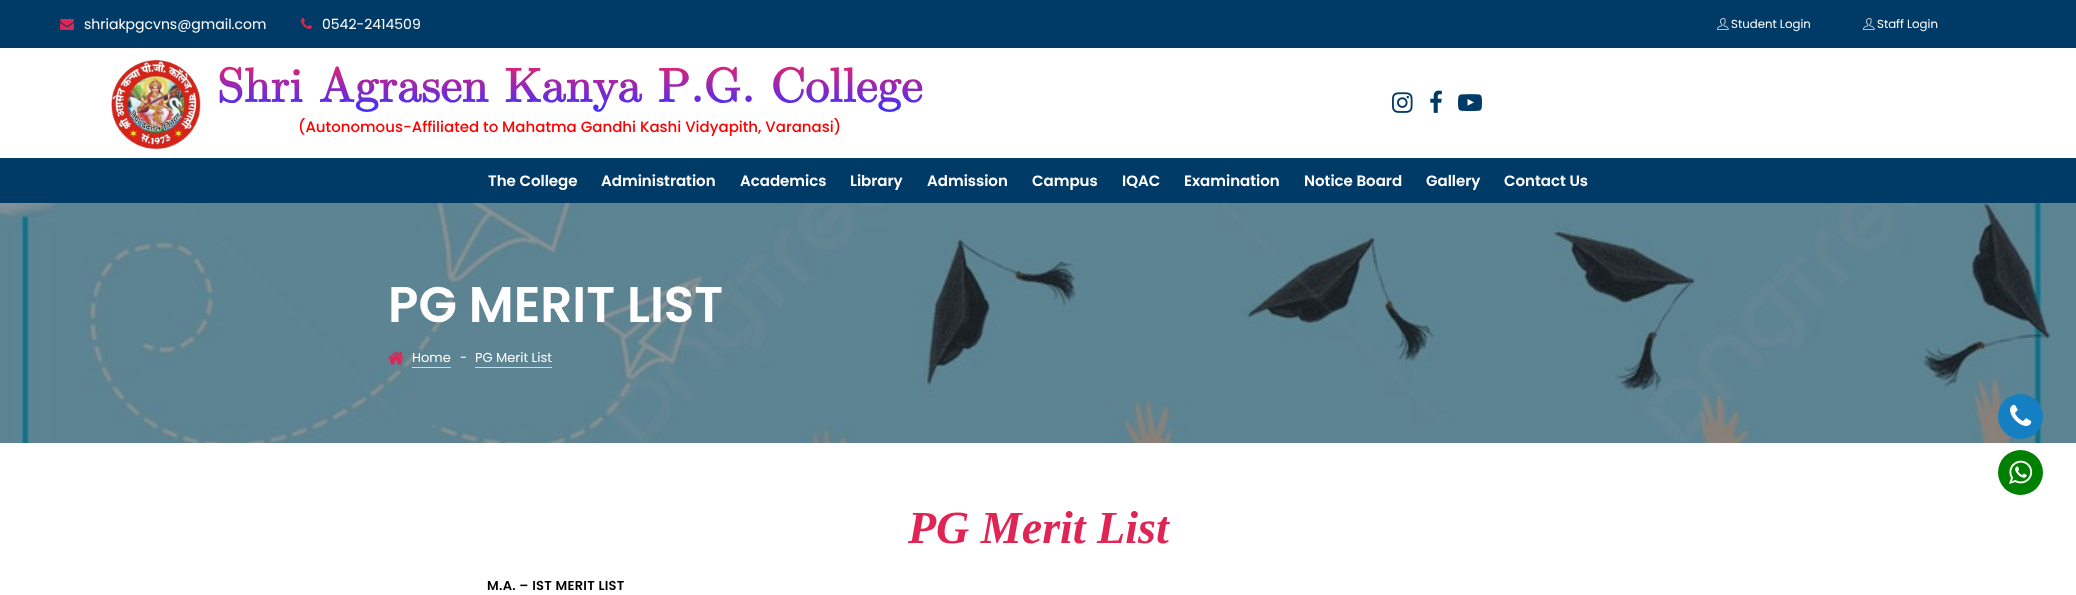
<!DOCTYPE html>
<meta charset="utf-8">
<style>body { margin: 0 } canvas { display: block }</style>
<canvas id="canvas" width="2076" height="595"></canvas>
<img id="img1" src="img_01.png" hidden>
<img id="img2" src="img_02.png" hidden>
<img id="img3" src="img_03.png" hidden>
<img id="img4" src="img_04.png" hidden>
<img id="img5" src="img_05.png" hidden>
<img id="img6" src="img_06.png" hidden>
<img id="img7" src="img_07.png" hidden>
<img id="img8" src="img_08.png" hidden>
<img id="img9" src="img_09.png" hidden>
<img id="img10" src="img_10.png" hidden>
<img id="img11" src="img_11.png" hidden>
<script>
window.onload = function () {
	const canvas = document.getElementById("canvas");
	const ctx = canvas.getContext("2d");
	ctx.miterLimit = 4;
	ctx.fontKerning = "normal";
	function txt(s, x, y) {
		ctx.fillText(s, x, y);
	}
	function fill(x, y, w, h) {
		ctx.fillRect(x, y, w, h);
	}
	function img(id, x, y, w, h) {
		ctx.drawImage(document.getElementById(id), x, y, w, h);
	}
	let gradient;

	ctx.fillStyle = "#FFFFFF";
	fill(0, 0, 2076, 595);
	ctx.fillStyle = "#003A66";
	fill(0, 0, 2076, 48);
	img("img1", 60, 19, 14, 11);
	img("img2", 301, 18, 11, 11);
	img("img3", 1717, 18, 12, 12);
	img("img3", 1863, 18, 12, 12);
	img("img4", 111, 60, 90, 90);
	img("img5", 1392, 92, 21, 21);
	img("img6", 1430, 90, 12, 23);
	img("img7", 1458, 94, 24, 18);
	fill(0, 158, 2076, 45);
	img("img8", 0, 203, 2076, 240);
	img("img9", 388, 351, 16, 14);
	ctx.fillStyle = "#CED7E4";
	fill(412, 367, 39, 1);
	fill(475, 367, 77, 1);
	ctx.fillStyle = "#1480C3";
	ctx.beginPath();
	ctx.arc(2020.5, 416.5, 22.5, 0, Math.PI * 2);
	ctx.fill();
	img("img10", 2010, 404, 22, 22);
	ctx.fillStyle = "#008000";
	ctx.beginPath();
	ctx.arc(2020.5, 472.5, 22.5, 0, Math.PI * 2);
	ctx.fill();
	img("img11", 2009, 460, 24, 24);
	ctx.font = "14px Poppins";
	ctx.fillStyle = "#FFFFFF";
	txt("shriakpgcvns@gmail.com", 84, 29);
	txt("0542-2414509", 322, 29);
	ctx.font = "11.75px Poppins";
	txt("Student Login", 1731, 28);
	txt("Staff Login", 1877, 28);
	ctx.font = "bold 48px Latin Modern Math";
	gradient = ctx.createLinearGradient(570, 110, 570, 66);
	gradient.addColorStop(0, "#402FFF");
	gradient.addColorStop(1, "#DD2476");
	ctx.fillStyle = gradient;
	txt("Shri Agrasen Kanya P.G. College", 217, 102);
	ctx.font = "500 15px Poppins";
	ctx.fillStyle = "#FF0000";
	txt("(Autonomous-Affiliated to Mahatma Gandhi Kashi Vidyapith, Varanasi)", 298, 132);
	ctx.font = "600 15px Poppins";
	ctx.fillStyle = "#FFFFFF";
	txt("The College", 488, 186);
	txt("Administration", 601, 186);
	txt("Academics", 740, 186);
	txt("Library", 850, 186);
	txt("Admission", 927, 186);
	txt("Campus", 1032, 186);
	txt("IQAC", 1122, 186);
	txt("Examination", 1184, 186);
	txt("Notice Board", 1304, 186);
	txt("Gallery", 1426, 186);
	txt("Contact Us", 1504, 186);
	ctx.font = "600 50px Poppins";
	txt("PG MERIT LIST", 388, 322);
	ctx.font = "13px Poppins";
	txt("Home", 412, 362);
	txt("-", 460, 362);
	txt("PG Merit List", 475, 362);
	ctx.font = "italic bold 46px Liberation Serif";
	ctx.fillStyle = "#E02454";
	txt("PG Merit List", 908, 543);
	ctx.letterSpacing = "0.3px";
	ctx.font = "600 13px Poppins";
	ctx.fillStyle = "#000000";
	txt("M.A. – IST MERIT LIST", 487, 590);
};
</script>
